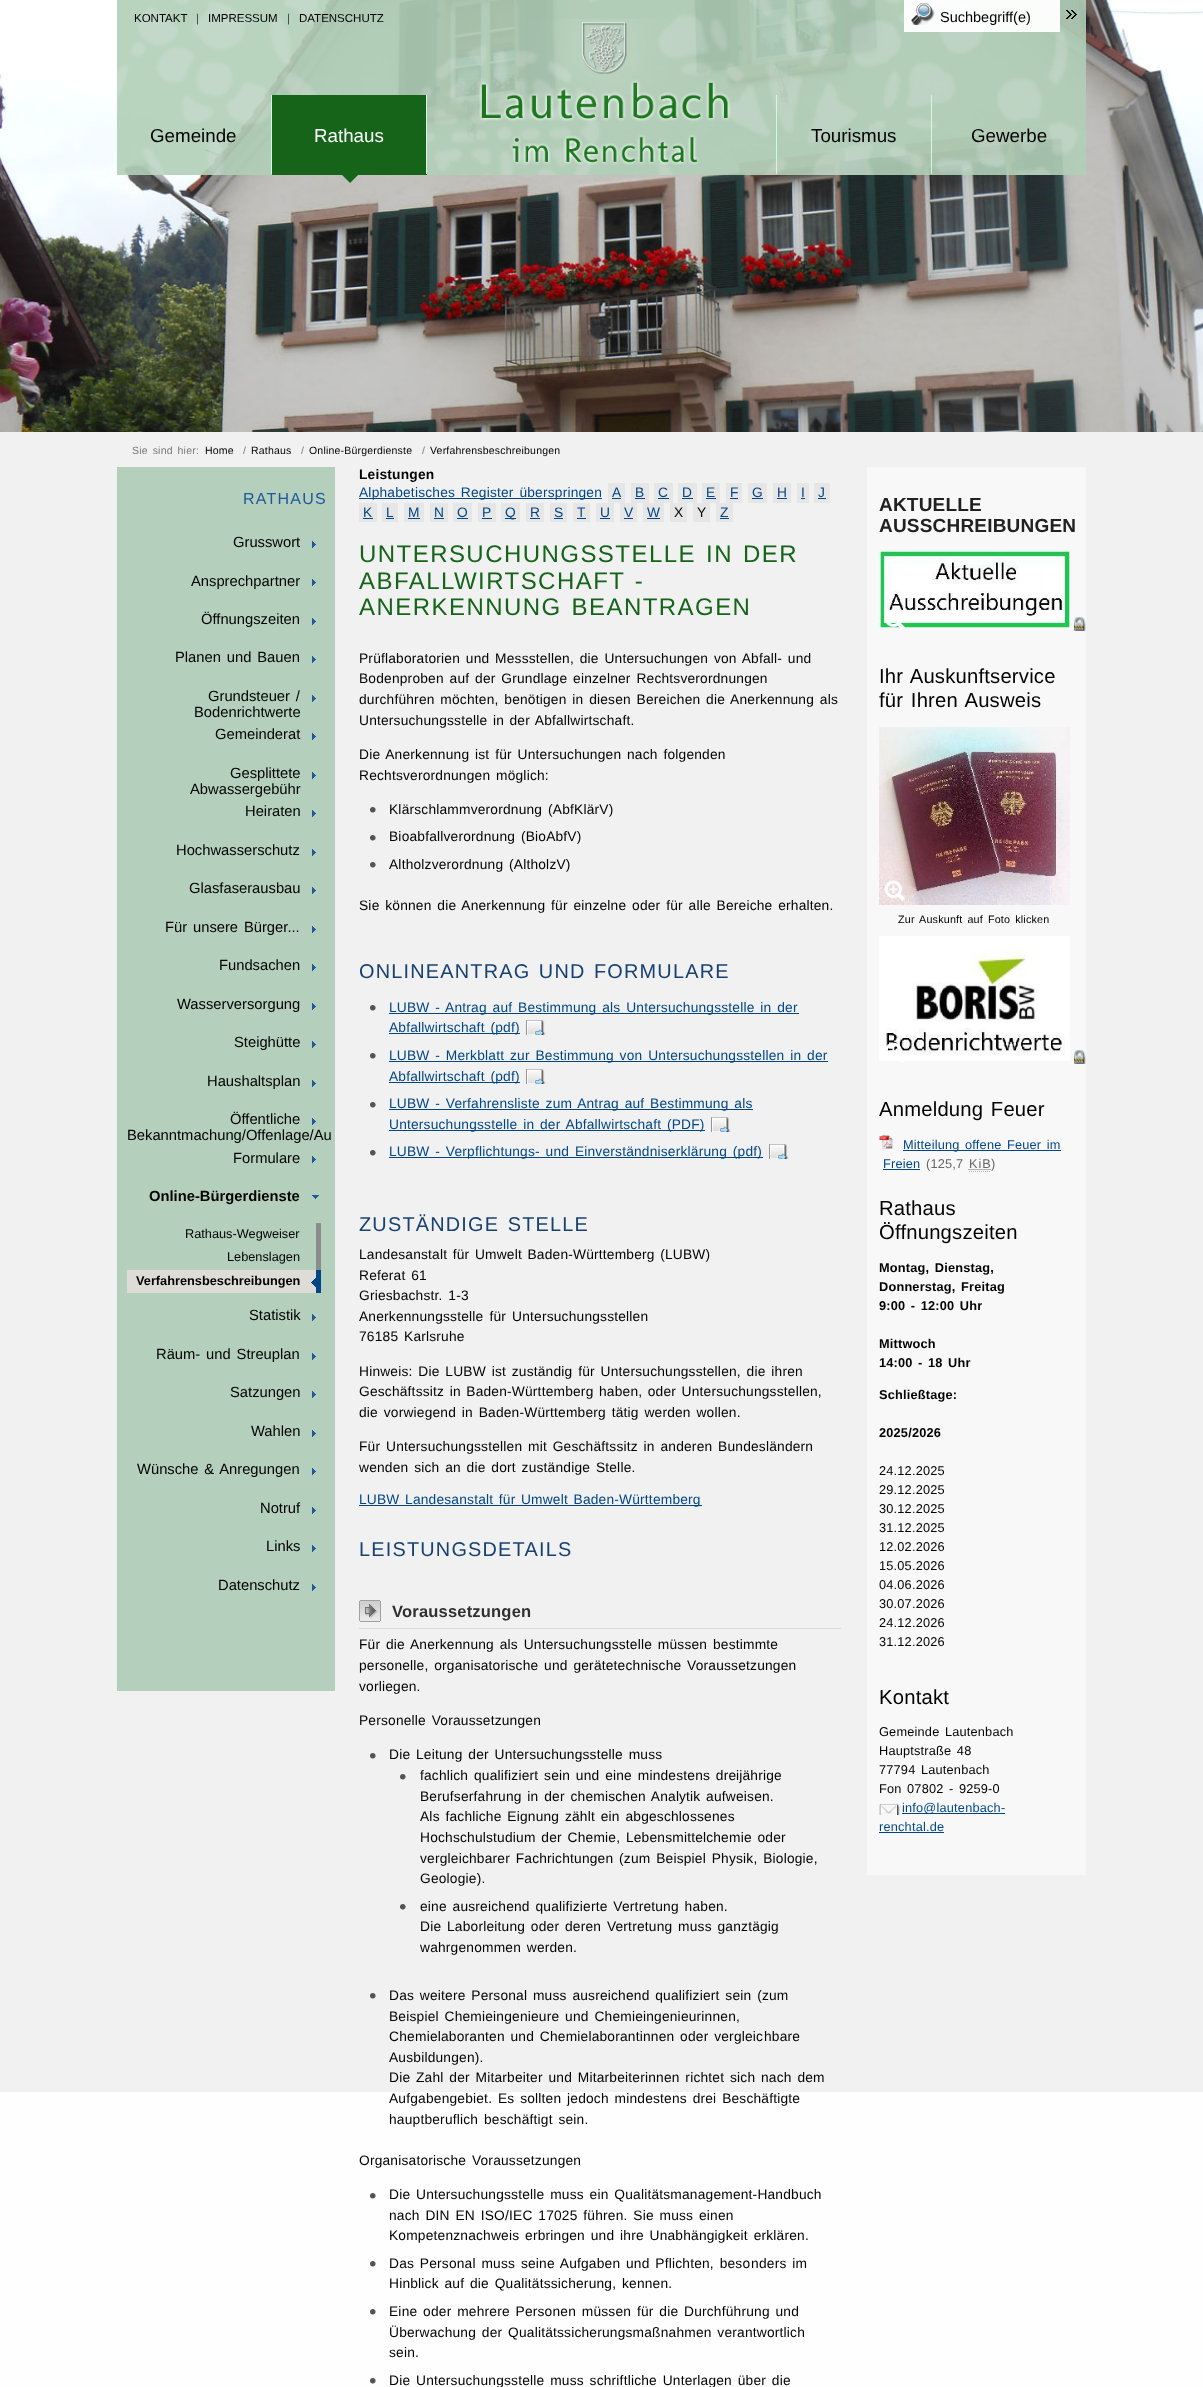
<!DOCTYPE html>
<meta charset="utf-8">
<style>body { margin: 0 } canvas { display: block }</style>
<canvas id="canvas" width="1203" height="2387"></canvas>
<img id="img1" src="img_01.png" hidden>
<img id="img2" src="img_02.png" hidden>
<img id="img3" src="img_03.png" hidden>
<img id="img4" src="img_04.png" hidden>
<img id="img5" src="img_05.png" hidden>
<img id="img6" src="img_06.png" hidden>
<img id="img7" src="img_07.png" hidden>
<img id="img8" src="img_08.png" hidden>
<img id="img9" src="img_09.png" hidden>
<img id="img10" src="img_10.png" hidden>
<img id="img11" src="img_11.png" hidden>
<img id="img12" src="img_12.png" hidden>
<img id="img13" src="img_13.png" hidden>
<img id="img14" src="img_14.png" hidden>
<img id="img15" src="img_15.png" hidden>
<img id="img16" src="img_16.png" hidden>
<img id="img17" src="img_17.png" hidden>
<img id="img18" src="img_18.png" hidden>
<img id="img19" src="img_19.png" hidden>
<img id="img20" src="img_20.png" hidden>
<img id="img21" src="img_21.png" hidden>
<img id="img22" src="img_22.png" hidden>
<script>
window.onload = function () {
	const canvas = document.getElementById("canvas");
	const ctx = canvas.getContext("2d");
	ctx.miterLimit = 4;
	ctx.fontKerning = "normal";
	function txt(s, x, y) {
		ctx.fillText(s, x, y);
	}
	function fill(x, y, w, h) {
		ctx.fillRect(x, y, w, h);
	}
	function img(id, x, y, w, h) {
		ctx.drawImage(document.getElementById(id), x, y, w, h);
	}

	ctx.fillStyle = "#F1F1F1";
	fill(0, 0, 1203, 2387);
	ctx.fillStyle = "#FEFEFE";
	fill(0, 2092, 1203, 295);
	img("img1", 0, 0, 1203, 432);
	img("img2", 117, 0, 969, 175);
	img("img3", 479, 19, 252, 146);
	ctx.fillStyle = "rgba(255, 255, 255, 0.95)";
	fill(904, 0, 156, 32);
	img("img4", 911, 3, 24, 22);
	img("img5", 1066, 10, 11, 9);
	ctx.fillStyle = "#D2F8E0";
	fill(271, 95, 1, 79);
	img("img6", 272, 95, 155, 88);
	fill(426, 95, 1, 79);
	fill(776, 95, 1, 79);
	fill(931, 95, 1, 79);
	ctx.fillStyle = "#B4CFBC";
	fill(117, 467, 218, 1224);
	img("img7", 312, 541, 4, 7);
	img("img7", 312, 579, 4, 7);
	img("img7", 312, 618, 4, 7);
	img("img7", 312, 656, 4, 7);
	img("img7", 312, 695, 4, 7);
	img("img7", 312, 733, 4, 7);
	img("img7", 312, 772, 4, 7);
	img("img7", 312, 810, 4, 7);
	img("img7", 312, 849, 4, 7);
	img("img7", 312, 887, 4, 7);
	img("img7", 312, 926, 4, 7);
	img("img7", 312, 964, 4, 7);
	img("img7", 312, 1003, 4, 7);
	img("img7", 312, 1041, 4, 7);
	img("img7", 312, 1080, 4, 7);
	img("img7", 312, 1118, 4, 7);
	img("img7", 312, 1156, 4, 7);
	img("img8", 312, 1195, 7, 4);
	ctx.fillStyle = "#8C8C8C";
	fill(316, 1223, 5, 47);
	ctx.fillStyle = "#DDDCD6";
	fill(127, 1270, 189, 23);
	ctx.fillStyle = "#004686";
	fill(316, 1270, 5, 23);
	img("img9", 311, 1278, 5, 9);
	img("img7", 312, 1314, 4, 7);
	img("img7", 312, 1353, 4, 7);
	img("img7", 312, 1391, 4, 7);
	img("img7", 312, 1430, 4, 7);
	img("img7", 312, 1468, 4, 7);
	img("img7", 312, 1507, 4, 7);
	img("img7", 312, 1545, 4, 7);
	img("img7", 312, 1584, 4, 7);
	fill(359, 498, 243, 1);
	ctx.fillStyle = "#E6E6E6";
	fill(608, 483, 17, 20);
	ctx.fillStyle = "#004686";
	fill(612, 498, 9, 1);
	ctx.fillStyle = "#E6E6E6";
	fill(631, 483, 18, 20);
	ctx.fillStyle = "#004686";
	fill(635, 498, 10, 1);
	ctx.fillStyle = "#E6E6E6";
	fill(654, 483, 19, 20);
	ctx.fillStyle = "#004686";
	fill(658, 498, 11, 1);
	ctx.fillStyle = "#E6E6E6";
	fill(678, 483, 19, 20);
	ctx.fillStyle = "#004686";
	fill(682, 498, 11, 1);
	ctx.fillStyle = "#E6E6E6";
	fill(702, 483, 18, 20);
	ctx.fillStyle = "#004686";
	fill(706, 498, 10, 1);
	ctx.fillStyle = "#E6E6E6";
	fill(726, 483, 16, 20);
	ctx.fillStyle = "#004686";
	fill(730, 498, 8, 1);
	ctx.fillStyle = "#E6E6E6";
	fill(748, 483, 19, 20);
	ctx.fillStyle = "#004686";
	fill(752, 498, 11, 1);
	ctx.fillStyle = "#E6E6E6";
	fill(773, 483, 18, 20);
	ctx.fillStyle = "#004686";
	fill(777, 498, 10, 1);
	ctx.fillStyle = "#E6E6E6";
	fill(797, 483, 12, 20);
	ctx.fillStyle = "#004686";
	fill(801, 498, 4, 1);
	ctx.fillStyle = "#E6E6E6";
	fill(814, 483, 16, 20);
	ctx.fillStyle = "#004686";
	fill(818, 498, 8, 1);
	ctx.fillStyle = "#E6E6E6";
	fill(359, 503, 18, 19);
	ctx.fillStyle = "#004686";
	fill(363, 518, 10, 1);
	ctx.fillStyle = "#E6E6E6";
	fill(382, 503, 16, 19);
	ctx.fillStyle = "#004686";
	fill(386, 518, 8, 1);
	ctx.fillStyle = "#E6E6E6";
	fill(404, 503, 20, 19);
	ctx.fillStyle = "#004686";
	fill(408, 518, 12, 1);
	ctx.fillStyle = "#E6E6E6";
	fill(430, 503, 18, 19);
	ctx.fillStyle = "#004686";
	fill(434, 518, 10, 1);
	ctx.fillStyle = "#E6E6E6";
	fill(453, 503, 19, 19);
	ctx.fillStyle = "#004686";
	fill(457, 518, 11, 1);
	ctx.fillStyle = "#E6E6E6";
	fill(478, 503, 18, 19);
	ctx.fillStyle = "#004686";
	fill(482, 518, 10, 1);
	ctx.fillStyle = "#E6E6E6";
	fill(501, 503, 19, 19);
	ctx.fillStyle = "#004686";
	fill(505, 518, 11, 1);
	ctx.fillStyle = "#E6E6E6";
	fill(526, 503, 18, 19);
	ctx.fillStyle = "#004686";
	fill(530, 518, 10, 1);
	ctx.fillStyle = "#E6E6E6";
	fill(550, 503, 17, 19);
	ctx.fillStyle = "#004686";
	fill(554, 518, 9, 1);
	ctx.fillStyle = "#E6E6E6";
	fill(573, 503, 17, 19);
	ctx.fillStyle = "#004686";
	fill(577, 518, 9, 1);
	ctx.fillStyle = "#E6E6E6";
	fill(596, 503, 18, 19);
	ctx.fillStyle = "#004686";
	fill(600, 518, 10, 1);
	ctx.fillStyle = "#E6E6E6";
	fill(620, 503, 17, 19);
	ctx.fillStyle = "#004686";
	fill(624, 518, 9, 1);
	ctx.fillStyle = "#E6E6E6";
	fill(643, 503, 21, 19);
	ctx.fillStyle = "#004686";
	fill(647, 518, 13, 1);
	ctx.fillStyle = "#E6E6E6";
	fill(670, 503, 17, 19);
	fill(693, 503, 17, 19);
	fill(716, 503, 17, 19);
	ctx.fillStyle = "#004686";
	fill(720, 518, 9, 1);
	img("img10", 370, 807, 6, 6);
	img("img10", 370, 835, 6, 6);
	img("img10", 370, 862, 6, 6);
	img("img10", 370, 1005, 6, 6);
	fill(389, 1013, 410, 1);
	fill(389, 1033, 131, 1);
	img("img11", 526, 1020, 20, 15);
	img("img10", 370, 1053, 6, 6);
	fill(389, 1061, 439, 1);
	fill(389, 1082, 131, 1);
	img("img11", 526, 1069, 20, 15);
	img("img10", 370, 1102, 6, 6);
	fill(389, 1109, 364, 1);
	fill(389, 1130, 316, 1);
	img("img11", 711, 1117, 20, 15);
	img("img10", 370, 1150, 6, 6);
	fill(389, 1157, 374, 1);
	img("img11", 769, 1144, 20, 15);
	fill(359, 1505, 343, 1);
	img("img12", 359, 1600, 22, 22);
	ctx.fillStyle = "#DDDCD6";
	fill(359, 1628, 482, 1);
	img("img10", 370, 1753, 6, 6);
	img("img10", 400, 1774, 6, 6);
	img("img10", 400, 1904, 6, 6);
	img("img10", 370, 1993, 6, 6);
	img("img13", 370, 2193, 6, 6);
	img("img13", 370, 2261, 6, 6);
	img("img13", 370, 2309, 6, 6);
	img("img13", 370, 2378, 6, 6);
	ctx.fillStyle = "#F8F8F8";
	fill(867, 467, 219, 1408);
	img("img14", 879, 551, 191, 77);
	img("img15", 884, 609, 21, 21);
	img("img16", 1074, 617, 12, 14);
	img("img17", 879, 727, 191, 178);
	img("img18", 884, 880, 21, 21);
	img("img19", 879, 936, 191, 125);
	img("img20", 886, 1042, 18, 21);
	img("img16", 1074, 1050, 12, 14);
	img("img21", 879, 1135, 14, 14);
	ctx.fillStyle = "#004686";
	fill(903, 1150, 158, 1);
	fill(883, 1169, 37, 1);
	ctx.beginPath();
	ctx.moveTo(969, 1171.5);
	ctx.lineTo(991, 1171.5);
	ctx.strokeStyle = "#AAAAAA";
	ctx.setLineDash([1, 1]);
	ctx.stroke();
	ctx.beginPath();
	ctx.moveTo(968.5, 1169.5);
	ctx.lineTo(991, 1169.5);
	ctx.strokeStyle = "#666666";
	ctx.stroke();
	img("img22", 879, 1804, 21, 11);
	fill(902, 1813, 103, 1);
	fill(879, 1832, 65, 1);
	ctx.font = "11.5px Liberation Sans";
	ctx.fillStyle = "#000000";
	txt("KONTAKT", 134, 22);
	ctx.fillStyle = "#444444";
	txt("|", 196, 22);
	ctx.fillStyle = "#000000";
	txt("IMPRESSUM", 208, 22);
	ctx.fillStyle = "#444444";
	txt("|", 287, 22);
	ctx.fillStyle = "#000000";
	txt("DATENSCHUTZ", 299, 22);
	ctx.font = "14.5px Liberation Sans";
	txt("Suchbegriff(e)", 940, 22);
	ctx.font = "18.75px Liberation Sans";
	txt("Gemeinde", 150, 142);
	ctx.fillStyle = "#FFFFFF";
	txt("Rathaus", 314, 142);
	ctx.fillStyle = "#000000";
	txt("Tourismus", 811, 142);
	txt("Gewerbe", 971, 142);
	ctx.letterSpacing = "0.2px";
	ctx.wordSpacing = "1.75px";
	ctx.font = "10.5px Liberation Sans";
	ctx.fillStyle = "#7A7979";
	txt("Sie sind hier:", 132, 454);
	ctx.wordSpacing = "0px";
	ctx.fillStyle = "#000000";
	txt("Home", 205, 454);
	ctx.fillStyle = "#7A7979";
	txt("/", 243, 454);
	ctx.fillStyle = "#000000";
	txt("Rathaus", 251, 454);
	ctx.fillStyle = "#7A7979";
	txt("/", 301, 454);
	ctx.fillStyle = "#000000";
	txt("Online-Bürgerdienste", 309, 454);
	ctx.fillStyle = "#7A7979";
	txt("/", 422, 454);
	ctx.fillStyle = "#000000";
	txt("Verfahrensbeschreibungen", 430, 454);
	ctx.letterSpacing = "1.25px";
	ctx.font = "16px Liberation Sans";
	ctx.fillStyle = "#20599C";
	txt("RATHAUS", 243, 504);
	ctx.letterSpacing = "0px";
	ctx.font = "14.75px Liberation Sans";
	ctx.fillStyle = "#000000";
	txt("Grusswort", 233, 547);
	txt("Ansprechpartner", 191, 586);
	txt("Öffnungszeiten", 201, 624);
	ctx.wordSpacing = "1.75px";
	txt("Planen und Bauen", 175, 662);
	txt("Grundsteuer /", 208, 701);
	ctx.wordSpacing = "0px";
	txt("Bodenrichtwerte", 194, 717);
	txt("Gemeinderat", 215, 739);
	txt("Gesplittete", 230, 778);
	txt("Abwassergebühr", 190, 794);
	txt("Heiraten", 245, 816);
	txt("Hochwasserschutz", 176, 855);
	txt("Glasfaserausbau", 189, 893);
	ctx.wordSpacing = "1.75px";
	txt("Für unsere Bürger...", 165, 932);
	ctx.wordSpacing = "0px";
	txt("Fundsachen", 219, 970);
	txt("Wasserversorgung", 177, 1009);
	txt("Steighütte", 234, 1047);
	txt("Haushaltsplan", 207, 1086);
	txt("Öffentliche", 230, 1124);
	txt("Bekanntmachung/Offenlage/Au", 127, 1140);
	txt("Formulare", 233, 1163);
	ctx.font = "bold 14.75px Liberation Sans";
	txt("Online-Bürgerdienste", 149, 1201);
	ctx.font = "12.75px Liberation Sans";
	txt("Rathaus-Wegweiser", 185, 1238);
	txt("Lebenslagen", 227, 1261);
	ctx.font = "bold 12.75px Liberation Sans";
	txt("Verfahrensbeschreibungen", 136, 1285);
	ctx.font = "14.75px Liberation Sans";
	txt("Statistik", 249, 1320);
	ctx.wordSpacing = "1.75px";
	txt("Räum- und Streuplan", 156, 1359);
	ctx.wordSpacing = "0px";
	txt("Satzungen", 230, 1397);
	txt("Wahlen", 251, 1436);
	ctx.wordSpacing = "1.75px";
	txt("Wünsche & Anregungen", 137, 1474);
	ctx.wordSpacing = "0px";
	txt("Notruf", 260, 1513);
	txt("Links", 266, 1551);
	txt("Datenschutz", 218, 1590);
	ctx.letterSpacing = "0.2px";
	ctx.font = "bold 13.75px Liberation Sans";
	txt("Leistungen", 359, 479);
	ctx.wordSpacing = "1.75px";
	ctx.font = "13.75px Liberation Sans";
	ctx.fillStyle = "#004686";
	txt("Alphabetisches Register überspringen", 359, 497);
	ctx.wordSpacing = "0px";
	txt("A", 612, 497);
	txt("B", 635, 497);
	txt("C", 658, 497);
	txt("D", 682, 497);
	txt("E", 706, 497);
	txt("F", 730, 497);
	txt("G", 752, 497);
	txt("H", 777, 497);
	txt("I", 801, 497);
	txt("J", 818, 497);
	txt("K", 363, 517);
	txt("L", 386, 517);
	txt("M", 408, 517);
	txt("N", 434, 517);
	txt("O", 457, 517);
	txt("P", 482, 517);
	txt("Q", 505, 517);
	txt("R", 530, 517);
	txt("S", 554, 517);
	txt("T", 577, 517);
	txt("U", 600, 517);
	txt("V", 624, 517);
	txt("W", 647, 517);
	ctx.fillStyle = "#000000";
	txt("X", 674, 517);
	txt("Y", 697, 517);
	ctx.fillStyle = "#004686";
	txt("Z", 720, 517);
	ctx.letterSpacing = "1.45px";
	ctx.wordSpacing = "2px";
	ctx.font = "24px Liberation Sans";
	ctx.fillStyle = "#156419";
	txt("UNTERSUCHUNGSSTELLE IN DER", 359, 562);
	ctx.wordSpacing = "1.75px";
	txt("ABFALLWIRTSCHAFT -", 359, 589);
	txt("ANERKENNUNG BEANTRAGEN", 359, 615);
	ctx.letterSpacing = "0.2px";
	ctx.font = "13.75px Liberation Sans";
	ctx.fillStyle = "#000000";
	txt("Prüflaboratorien und Messstellen, die Untersuchungen von Abfall- und", 359, 663);
	txt("Bodenproben auf der Grundlage einzelner Rechtsverordnungen", 359, 683);
	txt("durchführen möchten, benötigen in diesen Bereichen die Anerkennung als", 359, 704);
	ctx.wordSpacing = "1.5px";
	txt("Untersuchungsstelle in der Abfallwirtschaft.", 359, 725);
	ctx.wordSpacing = "1.75px";
	txt("Die Anerkennung ist für Untersuchungen nach folgenden", 359, 759);
	ctx.wordSpacing = "0px";
	txt("Rechts", 359, 780);
	ctx.wordSpacing = "1.75px";
	txt("verordnungen möglich:", 403, 780);
	txt("Klärschlammverordnung (AbfKlärV)", 389, 814);
	txt("Bioabfallverordnung (BioAbfV)", 389, 841);
	txt("Altholzverordnung (AltholzV)", 389, 869);
	txt("Sie können die Anerkennung für einzelne oder für alle Bereiche erhalten.", 359, 910);
	ctx.letterSpacing = "1.2px";
	ctx.font = "19.9px Liberation Sans";
	ctx.fillStyle = "#174171";
	txt("ONLINEANTRAG UND FORMULARE", 359, 978);
	ctx.letterSpacing = "0.2px";
	ctx.font = "13.75px Liberation Sans";
	ctx.fillStyle = "#004686";
	txt("LUBW - Antrag auf Bestimmung als Untersuchungsstelle in der", 389, 1012);
	txt("Abfallwirtschaft (pdf)", 389, 1032);
	txt("LUBW - Merkblatt zur Bestimmung von Untersuchungsstellen in der", 389, 1060);
	txt("Abfallwirtschaft (pdf)", 389, 1081);
	txt("LUBW - Verfahrensliste zum Antrag auf Bestimmung als", 389, 1108);
	txt("Untersuchungsstelle in der Abfallwirtschaft (PDF)", 389, 1129);
	txt("LUBW - Verpflichtungs- und Einverständniserklärung (pdf)", 389, 1156);
	ctx.letterSpacing = "1.2px";
	ctx.font = "19.9px Liberation Sans";
	ctx.fillStyle = "#174171";
	txt("ZUSTÄNDIGE STELLE", 359, 1231);
	ctx.letterSpacing = "0.2px";
	ctx.wordSpacing = "1.5px";
	ctx.font = "13.75px Liberation Sans";
	ctx.fillStyle = "#000000";
	txt("Landesanstalt für Umwelt Baden-Württemberg (LUBW)", 359, 1259);
	ctx.wordSpacing = "1.75px";
	txt("Referat 61", 359, 1280);
	txt("Griesbachstr. 1-3", 359, 1300);
	ctx.wordSpacing = "2px";
	txt("Anerkennungsstelle für Untersuchungsstellen", 359, 1321);
	ctx.wordSpacing = "1.75px";
	txt("76185 Karlsruhe", 359, 1341);
	txt("Hinweis: Die LUBW ist zuständig für Untersuchungsstellen, die ihren", 359, 1376);
	ctx.wordSpacing = "1.5px";
	txt("Geschäftssitz in Baden-Württemberg haben, oder Untersuchungsstellen,", 359, 1396);
	ctx.wordSpacing = "1.75px";
	txt("die vorwiegend in Baden-Württemberg tätig werden wollen.", 359, 1417);
	txt("Für Untersuchungsstellen mit Geschäftssitz in anderen Bundesländern", 359, 1451);
	txt("wenden sich an die dort zuständige Stelle.", 359, 1472);
	ctx.wordSpacing = "1.5px";
	ctx.fillStyle = "#004686";
	txt("LUBW Landesanstalt für Umwelt Baden-Württemberg", 359, 1504);
	ctx.letterSpacing = "1.2px";
	ctx.wordSpacing = "0px";
	ctx.font = "19.9px Liberation Sans";
	ctx.fillStyle = "#174171";
	txt("LEISTUNGSDETAILS", 359, 1556);
	ctx.letterSpacing = "0.2px";
	ctx.font = "bold 16.5px Liberation Sans";
	ctx.fillStyle = "#303030";
	txt("Voraussetzungen", 392, 1617);
	ctx.wordSpacing = "1.75px";
	ctx.font = "13.75px Liberation Sans";
	ctx.fillStyle = "#000000";
	txt("Für die Anerkennung als Untersuchungsstelle müssen bestimmte", 359, 1649);
	txt("personelle, organisatorische und gerätetechnische Voraussetzungen", 359, 1670);
	ctx.wordSpacing = "0px";
	txt("vorliegen.", 359, 1691);
	ctx.wordSpacing = "1.75px";
	txt("Personelle Voraussetzungen", 359, 1725);
	txt("Die Leitung der Untersuchungsstelle muss", 389, 1759);
	txt("fachlich qualifiziert sein und eine mindestens dre", 420, 1780);
	ctx.wordSpacing = "0px";
	txt("ijährige", 736, 1780);
	ctx.wordSpacing = "1.75px";
	txt("Berufserfahrung in der chemischen Anal", 420, 1801);
	ctx.wordSpacing = "0px";
	txt("y", 679, 1801);
	ctx.wordSpacing = "1.75px";
	txt("tik aufweisen.", 686, 1801);
	txt("Als fachliche Eignung zählt ein abgeschlossenes", 420, 1821);
	txt("Hochschulstudium der Chemie, Lebensmittelch", 420, 1842);
	ctx.wordSpacing = "0px";
	txt("e", 721, 1842);
	ctx.wordSpacing = "1.75px";
	txt("mie oder", 729, 1842);
	txt("vergleichbarer Fachrichtungen (zum Beispiel Ph", 420, 1863);
	ctx.wordSpacing = "0px";
	txt("y", 729, 1863);
	ctx.wordSpacing = "1.75px";
	txt("sik, Biologie,", 736, 1863);
	ctx.wordSpacing = "0px";
	txt("Geologie).", 420, 1883);
	ctx.wordSpacing = "1.75px";
	txt("eine ausreichend qualifizierte Vertretung haben.", 420, 1911);
	txt("Die Laborleitung oder deren Vertretung muss ganztägig", 420, 1931);
	txt("wahrgenommen werden.", 420, 1952);
	txt("Das weitere Personal muss ausreichend qualifiziert sein (zum", 389, 2000);
	txt("Beispiel Chemieingenieure und Chemieingenieurinnen,", 389, 2021);
	ctx.wordSpacing = "0px";
	txt("Che", 389, 2041);
	ctx.wordSpacing = "1.75px";
	txt("mielaboranten und Chemielaborantinnen oder vergleic", 415, 2041);
	ctx.wordSpacing = "0px";
	txt("hbare", 764, 2041);
	txt("Ausbildungen).", 389, 2062);
	ctx.wordSpacing = "1.75px";
	txt("Die Zahl der Mitarbeiter und Mitarbeiterinnen richtet sich nach dem", 389, 2082);
	txt("Aufgabengebiet. Es sollten jedoch mindestens drei Beschäftigte", 389, 2103);
	txt("hauptberuflich beschäftigt sein.", 389, 2124);
	txt("Organisatorische Voraussetzungen", 359, 2165);
	txt("Die Untersuchungsstelle muss ein Qualitätsmanagement-Handbuch", 389, 2199);
	txt("nach DIN EN ISO/IEC 17025 führen. Sie muss einen", 389, 2220);
	txt("Kompetenznachweis erbringen und ihre Unabhängigkeit erklären.", 389, 2240);
	txt("Das Personal muss seine Aufgaben und Pflichten, beso", 389, 2268);
	ctx.wordSpacing = "0px";
	txt("n", 751, 2268);
	ctx.wordSpacing = "1.75px";
	txt("ders im", 759, 2268);
	txt("Hinblick auf die Qualitätssicherung, kennen.", 389, 2288);
	txt("Eine oder mehrere Personen müssen für die Durchführung und", 389, 2316);
	txt("Überwachung der Qualitätssicherungsmaßnahmen verantwortlich", 389, 2337);
	ctx.wordSpacing = "0px";
	txt("sein.", 389, 2357);
	ctx.wordSpacing = "1.75px";
	txt("Die Untersuchungsstelle muss schriftliche Unterlagen über die", 389, 2385);
	ctx.wordSpacing = "0px";
	ctx.font = "bold 19px Liberation Sans";
	ctx.fillStyle = "#212121";
	txt("AKTUELLE", 879, 511);
	txt("AUSSCHREIBUNGEN", 879, 532);
	ctx.wordSpacing = "1.75px";
	ctx.font = "20.25px Liberation Sans";
	ctx.fillStyle = "#000000";
	txt("Ihr Auskunftservice", 879, 683);
	txt("für Ihren Ausweis", 879, 707);
	ctx.font = "10.75px Liberation Sans";
	txt("Zur Auskunft auf Foto klicken", 898, 923);
	ctx.font = "20.25px Liberation Sans";
	txt("Anmeldung Feuer", 879, 1116);
	ctx.font = "12.75px Liberation Sans";
	ctx.fillStyle = "#004686";
	txt("Mitteilung offene Feuer im", 903, 1149);
	ctx.wordSpacing = "0px";
	txt("Freien", 883, 1168);
	ctx.fillStyle = "#666666";
	txt("(125,7", 926, 1168);
	ctx.letterSpacing = "1px";
	txt("KiB", 969, 1168);
	ctx.letterSpacing = "0.2px";
	txt(")", 991, 1168);
	ctx.font = "20.25px Liberation Sans";
	ctx.fillStyle = "#000000";
	txt("Rathaus", 879, 1215);
	txt("Öffnungszeiten", 879, 1239);
	ctx.wordSpacing = "1.75px";
	ctx.font = "bold 12.75px Liberation Sans";
	txt("Montag, Dienstag,", 879, 1272);
	txt("Donnerstag, Freitag", 879, 1291);
	txt("9:00 - 12:00 Uhr", 879, 1310);
	ctx.wordSpacing = "0px";
	txt("Mittwoch", 879, 1348);
	ctx.wordSpacing = "1.75px";
	txt("14:00 - 18 Uhr", 879, 1367);
	ctx.wordSpacing = "0px";
	txt("Schließtage:", 879, 1399);
	txt("2025/2026", 879, 1437);
	ctx.font = "12.75px Liberation Sans";
	txt("24.12.2025", 879, 1475);
	txt("29.12.2025", 879, 1494);
	txt("30.12.2025", 879, 1513);
	txt("31.12.2025", 879, 1532);
	txt("12.02.2026", 879, 1551);
	txt("15.05.2026", 879, 1570);
	txt("04.06.2026", 879, 1589);
	txt("30.07.2026", 879, 1608);
	txt("24.12.2026", 879, 1627);
	txt("31.12.2026", 879, 1646);
	ctx.font = "20.25px Liberation Sans";
	txt("Kontakt", 879, 1704);
	ctx.wordSpacing = "1.75px";
	ctx.font = "12.75px Liberation Sans";
	txt("Gemeinde Lautenbach", 879, 1736);
	txt("Hauptstraße 48", 879, 1755);
	txt("77794 Lautenbach", 879, 1774);
	txt("Fon 07802 - 9259-0", 879, 1793);
	ctx.wordSpacing = "0px";
	ctx.fillStyle = "#004686";
	txt("info@lautenbach-", 902, 1812);
	txt("renchtal.de", 879, 1831);
};
</script>
